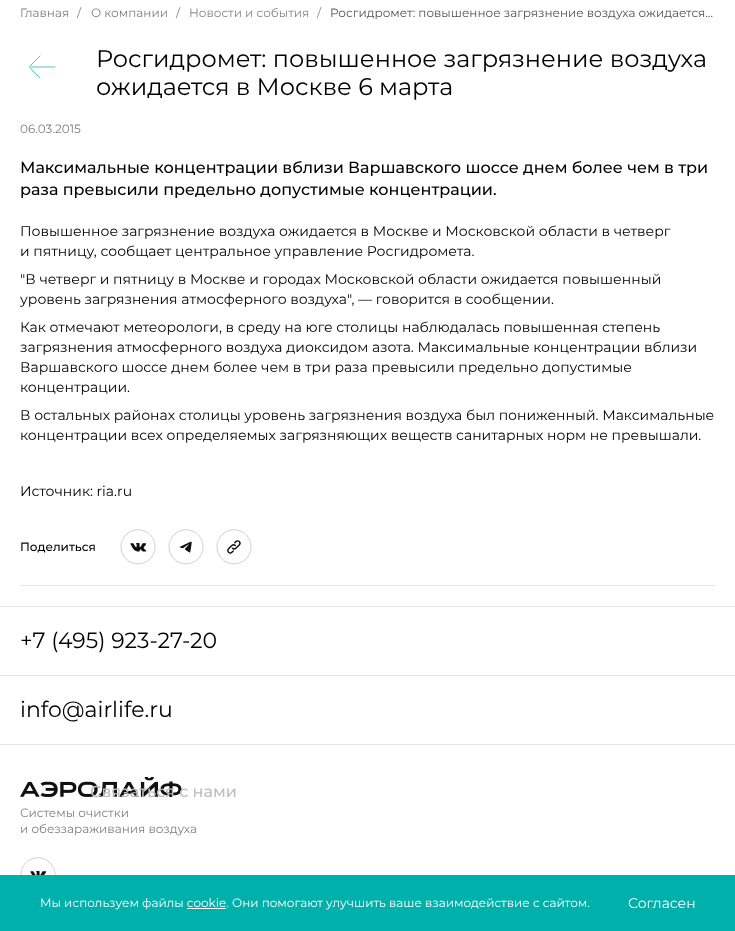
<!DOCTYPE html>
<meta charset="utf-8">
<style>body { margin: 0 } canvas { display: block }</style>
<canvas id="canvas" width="735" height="931"></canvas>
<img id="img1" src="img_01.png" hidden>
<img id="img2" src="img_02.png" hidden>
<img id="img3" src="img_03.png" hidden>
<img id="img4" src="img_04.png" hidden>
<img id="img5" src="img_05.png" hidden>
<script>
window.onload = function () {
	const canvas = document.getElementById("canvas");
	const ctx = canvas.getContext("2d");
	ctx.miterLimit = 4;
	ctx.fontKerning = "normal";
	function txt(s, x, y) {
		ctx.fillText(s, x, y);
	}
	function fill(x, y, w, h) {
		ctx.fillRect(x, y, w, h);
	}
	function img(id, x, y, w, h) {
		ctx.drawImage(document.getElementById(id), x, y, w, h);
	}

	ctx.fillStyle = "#FFFFFF";
	fill(0, 0, 735, 931);
	ctx.beginPath();
	ctx.moveTo(55, 67);
	ctx.lineTo(31, 67);
	ctx.moveTo(40, 56);
	ctx.lineTo(30.5, 65.5);
	ctx.bezierCurveTo(29.5, 66.5, 29.5, 67.5, 30.5, 68.5);
	ctx.lineTo(40, 78);
	ctx.strokeStyle = "#00B0AB";
	ctx.lineWidth = 0.7;
	ctx.lineCap = "round";
	ctx.stroke();
	ctx.fillStyle = "#E6E6E6";
	fill(20, 585, 695, 1);
	img("img1", 120, 529, 36, 36);
	img("img2", 168, 529, 36, 36);
	img("img3", 216, 529, 36, 36);
	fill(0, 606, 735, 1);
	fill(0, 744, 735, 1);
	fill(0, 675, 735, 1);
	img("img4", 20, 777, 162, 20);
	img("img5", 20, 857, 36, 18);
	ctx.fillStyle = "#00B0AB";
	fill(0, 875, 735, 56);
	ctx.fillStyle = "#FFFFFF";
	fill(187, 908, 39, 1);
	ctx.font = "12px Montserrat";
	ctx.fillStyle = "#7F7F7F";
	txt("Главная", 20, 17);
	txt("/", 77, 17);
	txt("О компании", 91, 17);
	txt("/", 176, 17);
	ctx.fillStyle = "#868686";
	txt("Новости и события", 189, 17);
	txt("/", 317, 17);
	ctx.fillStyle = "#525252";
	txt("Росгидромет: повышенное загрязнение воздуха ожидается…", 330, 17);
	ctx.font = "24px Montserrat";
	ctx.fillStyle = "#000000";
	txt("Росгидромет: повышенное загрязнение воздуха", 96, 67);
	txt("ожидается в Москве 6 марта", 96, 95);
	ctx.font = "12px Montserrat";
	ctx.fillStyle = "#7F7F7F";
	txt("06.03.2015", 20, 133);
	ctx.font = "500 16px Montserrat";
	ctx.fillStyle = "#000000";
	txt("Максимальные концентрации вблизи Варшавского шоссе днем более чем в три", 20, 173);
	txt("раза превысили предельно допустимые концентрации.", 20, 195);
	ctx.font = "14px Montserrat";
	txt("Повышенное загрязнение воздуха ожидается в Москве и Московской области в четверг", 20, 236);
	txt("и пятницу, сообщает центральное управление Росгидромета.", 20, 256);
	txt("\"В четверг и пятницу в Москве и городах Московской области ожидается повышенный", 20, 284);
	txt("уровень загрязнения атмосферного воздуха\", — говорится в сообщении.", 20, 304);
	txt("Как отмечают метеорологи, в среду на юге столицы наблюдалась повышенная степень", 20, 332);
	txt("загрязнения атмосферного воздуха диоксидом азота. Максимальные концентрации вблизи", 20, 352);
	txt("Варшавского шоссе днем более чем в три раза превысили предельно допустимые", 20, 372);
	txt("концентрации.", 20, 392);
	txt("В остальных районах столицы уровень загрязнения воздуха был пониженный. Максимальные", 20, 420);
	txt("концентрации всех определяемых загрязняющих веществ санитарных норм не превышали.", 20, 440);
	txt("Источник: ria.ru", 20, 496);
	ctx.font = "500 12px Montserrat";
	txt("Поделиться", 20, 551);
	ctx.font = "22px Montserrat";
	txt("+7 (495) 923-27-20", 20, 648);
	txt("info@airlife.ru", 20, 717);
	ctx.font = "12px Montserrat";
	ctx.fillStyle = "#7F7F7F";
	txt("Системы очистки", 20, 817);
	txt("и обеззараживания воздуха", 20, 833);
	ctx.fillStyle = "#FFFFFF";
	txt("Мы используем файлы cookie. Они помогают улучшить ваше взаимодействие с сайтом.", 40, 907);
	ctx.font = "14px Montserrat";
	txt("Согласен", 628, 908);
	ctx.font = "500 16px Montserrat";
	ctx.fillStyle = "#BDBDBD";
	txt("Связаться с нами", 90, 797);
};
</script>
